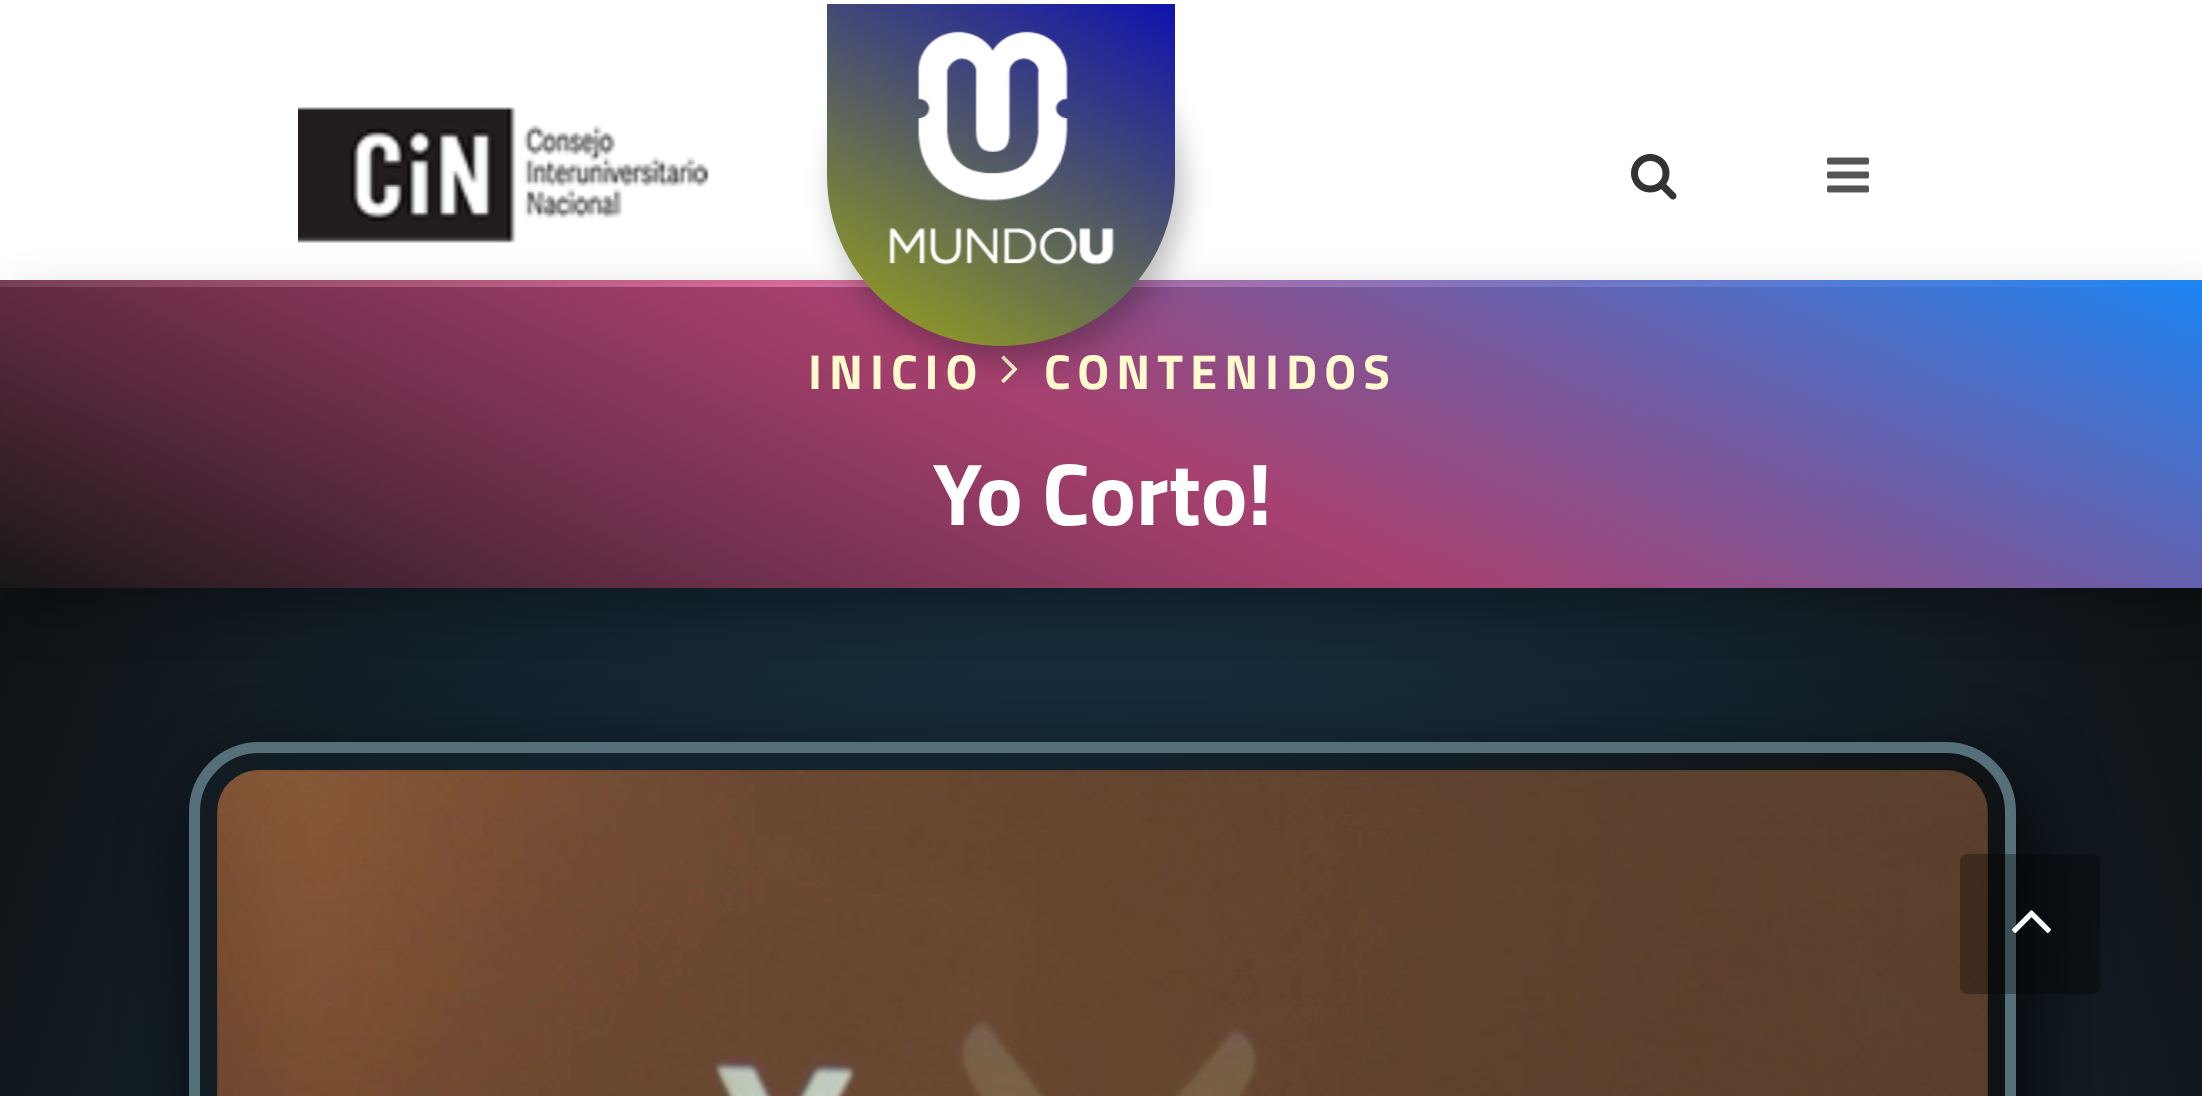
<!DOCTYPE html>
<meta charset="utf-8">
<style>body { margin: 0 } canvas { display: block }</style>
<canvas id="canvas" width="2202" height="1096"></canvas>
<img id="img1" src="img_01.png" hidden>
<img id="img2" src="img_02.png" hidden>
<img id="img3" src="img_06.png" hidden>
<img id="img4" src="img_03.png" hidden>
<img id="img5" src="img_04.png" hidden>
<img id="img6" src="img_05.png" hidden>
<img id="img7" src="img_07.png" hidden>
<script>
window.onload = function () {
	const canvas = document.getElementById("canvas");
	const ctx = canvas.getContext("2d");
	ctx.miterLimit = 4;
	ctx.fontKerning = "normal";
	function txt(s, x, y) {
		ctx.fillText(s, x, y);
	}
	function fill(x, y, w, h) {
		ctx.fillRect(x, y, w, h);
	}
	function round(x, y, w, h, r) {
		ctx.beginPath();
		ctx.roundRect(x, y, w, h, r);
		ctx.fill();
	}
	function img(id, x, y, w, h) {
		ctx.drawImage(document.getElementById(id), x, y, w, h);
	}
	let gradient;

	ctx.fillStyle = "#FFFFFF";
	fill(0, 0, 2202, 1096);
	gradient = ctx.createRadialGradient(1103, 1209.77, 0, 1103, 1209.77, 1559);
	gradient.addColorStop(0, "#21597D");
	gradient.addColorStop(1, "#0E0E0E");
	ctx.fillStyle = gradient;
	ctx.beginPath();
	ctx.rect(0, 287, 2202, 809);
	ctx.save();
	ctx.clip();
	ctx.scale(1, 4165 / 1559);
	ctx.fillRect(0, 0, 2202, 411);
	ctx.restore();
	ctx.save();
	ctx.beginPath();
	ctx.moveTo(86, 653);
	ctx.lineTo(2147, 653);
	ctx.lineTo(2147, 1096);
	ctx.lineTo(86, 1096);
	ctx.closePath();
	ctx.moveTo(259, 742);
	ctx.lineTo(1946, 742);
	ctx.bezierCurveTo(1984.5, 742, 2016, 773.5, 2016, 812);
	ctx.lineTo(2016, 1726);
	ctx.bezierCurveTo(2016, 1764.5, 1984.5, 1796, 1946, 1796);
	ctx.lineTo(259, 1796);
	ctx.bezierCurveTo(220.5, 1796, 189, 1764.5, 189, 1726);
	ctx.lineTo(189, 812);
	ctx.bezierCurveTo(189, 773.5, 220.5, 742, 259, 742);
	ctx.closePath();
	ctx.clip("evenodd");
	ctx.fillStyle = "rgba(0, 0, 0, 0.8)";
	ctx.filter = "blur(38.5px)";
	ctx.beginPath();
	ctx.roundRect(203, 770, 1827, 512, 70);
	ctx.fill();
	ctx.filter = "none";
	ctx.restore();
	ctx.save();
	ctx.beginPath();
	ctx.roundRect(189, 742, 1827, 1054, 70);
	ctx.clip();
	gradient = ctx.createLinearGradient(393, 559, 1812, 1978);
	gradient.addColorStop(0, "rgba(14, 14, 14, 0)");
	gradient.addColorStop(1, "#0E0E0E");
	ctx.fillStyle = gradient;
	fill(200, 753, 1806, 343);
	ctx.restore();
	ctx.beginPath();
	ctx.roundRect(194.5, 747.5, 1816, 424, 64.5);
	ctx.strokeStyle = "#557079";
	ctx.lineWidth = 11;
	ctx.stroke();
	img("img1", 217, 770, 1771, 326);
	ctx.fillStyle = "#EEEEEE";
	fill(0, 280, 2172, 4);
	ctx.save();
	ctx.beginPath();
	ctx.moveTo(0, 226);
	ctx.lineTo(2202, 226);
	ctx.lineTo(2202, 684);
	ctx.lineTo(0, 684);
	ctx.closePath();
	ctx.moveTo(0, 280);
	ctx.lineTo(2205, 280);
	ctx.lineTo(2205, 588);
	ctx.lineTo(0, 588);
	ctx.closePath();
	ctx.clip("evenodd");
	ctx.fillStyle = "rgba(0, 0, 0, 0.25)";
	ctx.filter = "blur(24.5px)";
	ctx.beginPath();
	ctx.rect(11, 301, 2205, 308);
	ctx.fill();
	ctx.filter = "none";
	ctx.restore();
	img("img2", 298, 107, 412, 136);
	gradient = ctx.createLinearGradient(847, 983, 1358, -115);
	gradient.addColorStop(0, "#171717");
	gradient.addColorStop(0.5, "rgba(204, 71, 126, 0.8)");
	gradient.addColorStop(1, "#1A86F5");
	ctx.fillStyle = gradient;
	fill(0, 280, 2202, 308);
	img("img3", 1001, 355, 17, 28);
	ctx.fillStyle = "rgba(0, 0, 0, 0.25)";
	ctx.filter = "blur(14.5px)";
	ctx.beginPath();
	ctx.roundRect(833, 18, 350, 343, 171.5);
	ctx.fill();
	ctx.filter = "none";
	gradient = ctx.createLinearGradient(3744, -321, 1389, 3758);
	gradient.addColorStop(0, "#0E82D2");
	gradient.addColorStop(0.11, "#1560C8");
	gradient.addColorStop(0.22, "#71B2DF");
	gradient.addColorStop(0.33, "#0B0FB2");
	gradient.addColorStop(0.44, "#A7B20B");
	gradient.addColorStop(0.56, "#930BB2");
	gradient.addColorStop(0.67, "#0B58B2");
	gradient.addColorStop(0.78, "#0B6EB2");
	gradient.addColorStop(0.89, "#B20B0B");
	gradient.addColorStop(1, "#3EA727");
	ctx.fillStyle = gradient;
	ctx.beginPath();
	ctx.moveTo(827, 4);
	ctx.lineTo(1175, 4);
	ctx.lineTo(1175, 175);
	ctx.bezierCurveTo(1175, 270, 1097, 346, 1001, 346);
	ctx.bezierCurveTo(905, 346, 827, 270, 827, 175);
	ctx.closePath();
	ctx.fill();
	img("img4", 889, 31, 226, 234);
	img("img5", 1631, 154, 46, 46);
	img("img6", 1827, 157, 42, 36);
	ctx.fillStyle = "rgba(0, 0, 0, 0.3)";
	round(1960, 854, 140, 140, 7);
	img("img7", 2012, 910, 39, 23);
	ctx.letterSpacing = "7px";
	ctx.font = "bold 49px Titillium Web";
	ctx.fillStyle = "#FFFACD";
	txt("INICIO", 808, 389);
	txt("CONTENIDOS", 1044, 389);
	ctx.letterSpacing = "0px";
	ctx.font = "bold 88px Titillium Web";
	ctx.fillStyle = "#FFFFFF";
	txt("Yo Corto!", 933, 525);
};
</script>
